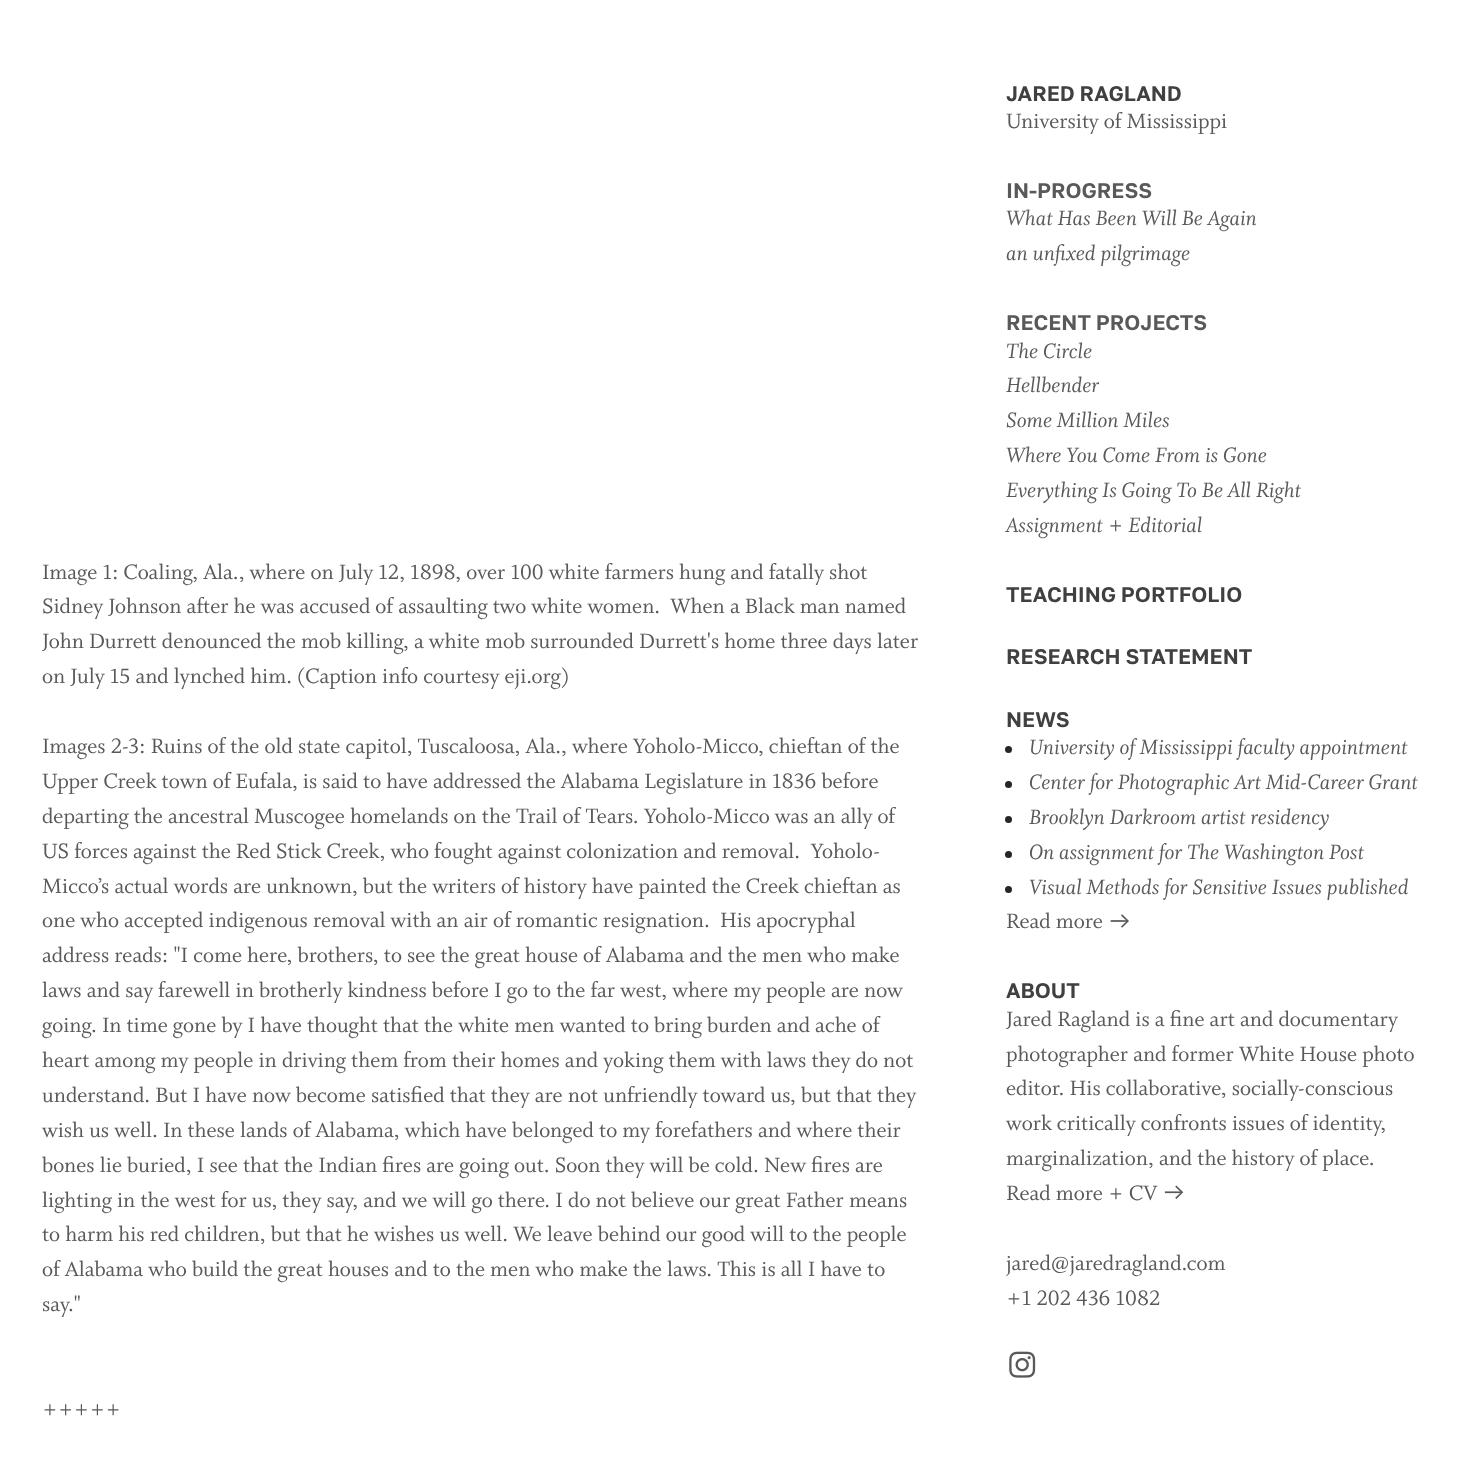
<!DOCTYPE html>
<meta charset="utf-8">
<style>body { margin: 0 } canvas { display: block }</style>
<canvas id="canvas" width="1482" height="1467"></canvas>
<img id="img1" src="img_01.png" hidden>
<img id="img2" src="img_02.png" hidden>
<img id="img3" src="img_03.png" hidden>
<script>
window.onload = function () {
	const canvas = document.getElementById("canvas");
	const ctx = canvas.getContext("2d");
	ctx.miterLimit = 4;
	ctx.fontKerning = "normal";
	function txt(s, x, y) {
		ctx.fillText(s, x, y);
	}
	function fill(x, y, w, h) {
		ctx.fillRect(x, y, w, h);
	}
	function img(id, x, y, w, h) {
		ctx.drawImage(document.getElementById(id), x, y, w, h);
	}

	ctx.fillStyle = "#FFFFFF";
	fill(0, 0, 1482, 1467);
	ctx.fillStyle = "#262626";
	ctx.beginPath();
	ctx.arc(1008.5, 749.5, 3.5, 0, Math.PI * 2);
	ctx.fill();
	ctx.beginPath();
	ctx.arc(1008.5, 784.5, 3.5, 0, Math.PI * 2);
	ctx.fill();
	ctx.beginPath();
	ctx.arc(1008.5, 819.5, 3.5, 0, Math.PI * 2);
	ctx.fill();
	ctx.beginPath();
	ctx.arc(1008.5, 854.5, 3.5, 0, Math.PI * 2);
	ctx.fill();
	ctx.beginPath();
	ctx.arc(1008.5, 889.5, 3.5, 0, Math.PI * 2);
	ctx.fill();
	img("img1", 1110, 914, 19, 14);
	img("img2", 1164, 1185, 20, 14);
	img("img3", 1009, 1351, 27, 27);
	ctx.font = "23.25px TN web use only";
	ctx.fillStyle = "#595959";
	txt("Image 1: Coaling, Ala., where on July 12, 1898, over 100 white farmers hung and fatally shot", 42, 579);
	txt("Sidney Johnson after he was accused of assaulting two white women.  When a Black man named", 42, 613);
	txt("John Durrett denounced the mob killing, a white mob surrounded Durrett's home three days later", 42, 648);
	txt("on July 15 and lynched him. (Caption info courtesy eji.org)", 42, 683);
	txt("Images 2-3: Ruins of the old state capitol, Tuscaloosa, Ala., where Yoholo-Micco, chieftan of the", 42, 753);
	txt("Upper Creek town of Eufala, is said to have addressed the Alabama Legislature in 1836 before", 42, 788);
	txt("departing the ancestral Muscogee homelands on the Trail of Tears. Yoholo-Micco was an ally of", 42, 823);
	txt("US forces against the Red Stick Creek, who fought against colonization and removal.  Yoholo-", 42, 858);
	txt("Micco’s actual words are unknown, but the writers of history have painted the Creek chieftan as", 42, 893);
	txt("one who accepted indigenous removal with an air of romantic resignation.  His apocryphal", 42, 927);
	txt("address reads: \"I come here, brothers, to see the great house of Alabama and the men who make", 42, 962);
	txt("laws and say farewell in brotherly kindness before I go to the far west, where my people are now", 42, 997);
	txt("going. In time gone by I have thought that the white men wanted to bring burden and ache of", 42, 1032);
	txt("heart among my people in driving them from their homes and yoking them with laws they do not", 42, 1067);
	txt("understand. But I have now become satisfied that they are not unfriendly toward us, but that they", 42, 1102);
	txt("wish us well. In these lands of Alabama, which have belonged to my forefathers and where their", 42, 1137);
	txt("bones lie buried, I see that the Indian fires are going out. Soon they will be cold. New fires are", 42, 1172);
	txt("lighting in the west for us, they say, and we will go there. I do not believe our great Father means", 42, 1207);
	txt("to harm his red children, but that he wishes us well. We leave behind our good will to the people", 42, 1241);
	txt("of Alabama who build the great houses and to the men who make the laws. This is all I have to", 42, 1276);
	txt("say.\"", 42, 1311);
	txt("+++++", 42, 1416);
	ctx.font = "600 21.1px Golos";
	ctx.fillStyle = "#404040";
	txt("JARED RAGLAND", 1006, 101);
	ctx.font = "23.25px TN web use only";
	ctx.fillStyle = "#595959";
	txt("University of Mississippi", 1006, 128);
	ctx.font = "600 21.1px Golos";
	txt("IN-PROGRESS", 1006, 198);
	ctx.font = "italic 23.25px TN web use only";
	txt("What Has Been Will Be Again", 1006, 225);
	txt("an unfixed pilgrimage", 1006, 260);
	ctx.font = "600 21.1px Golos";
	txt("RECENT PROJECTS", 1006, 330);
	ctx.font = "italic 23.25px TN web use only";
	txt("The Circle", 1006, 358);
	txt("Hellbender", 1006, 392);
	txt("Some Million Miles", 1006, 427);
	txt("Where You Come From is Gone", 1006, 462);
	txt("Everything Is Going To Be All Right", 1006, 497);
	txt("Assignment + Editorial", 1006, 532);
	ctx.font = "600 21.1px Golos";
	ctx.fillStyle = "#404040";
	txt("TEACHING PORTFOLIO", 1006, 602);
	txt("RESEARCH STATEMENT", 1006, 664);
	txt("NEWS", 1006, 727);
	ctx.font = "italic 23.25px TN web use only";
	ctx.fillStyle = "#595959";
	txt("University of Mississippi faculty appointment", 1029, 754);
	txt("Center for Photographic Art Mid-Career Grant", 1029, 789);
	txt("Brooklyn Darkroom artist residency", 1029, 824);
	txt("On assignment for The Washington Post", 1029, 859);
	txt("Visual Methods for Sensitive Issues published", 1029, 894);
	ctx.font = "23.25px TN web use only";
	txt("Read more", 1006, 928);
	ctx.font = "600 21.1px Golos";
	ctx.fillStyle = "#404040";
	txt("ABOUT", 1006, 998);
	ctx.font = "23.25px TN web use only";
	ctx.fillStyle = "#595959";
	txt("Jared Ragland is a fine art and documentary", 1006, 1026);
	txt("photographer and former White House photo", 1006, 1061);
	txt("editor. His collaborative, socially-conscious", 1006, 1095);
	txt("work critically confronts issues of identity,", 1006, 1130);
	txt("marginalization, and the history of place.", 1006, 1165);
	txt("Read more + CV", 1006, 1200);
	txt("jared@jaredragland.com", 1006, 1270);
	txt("+1 202 436 1082", 1006, 1305);
};
</script>
